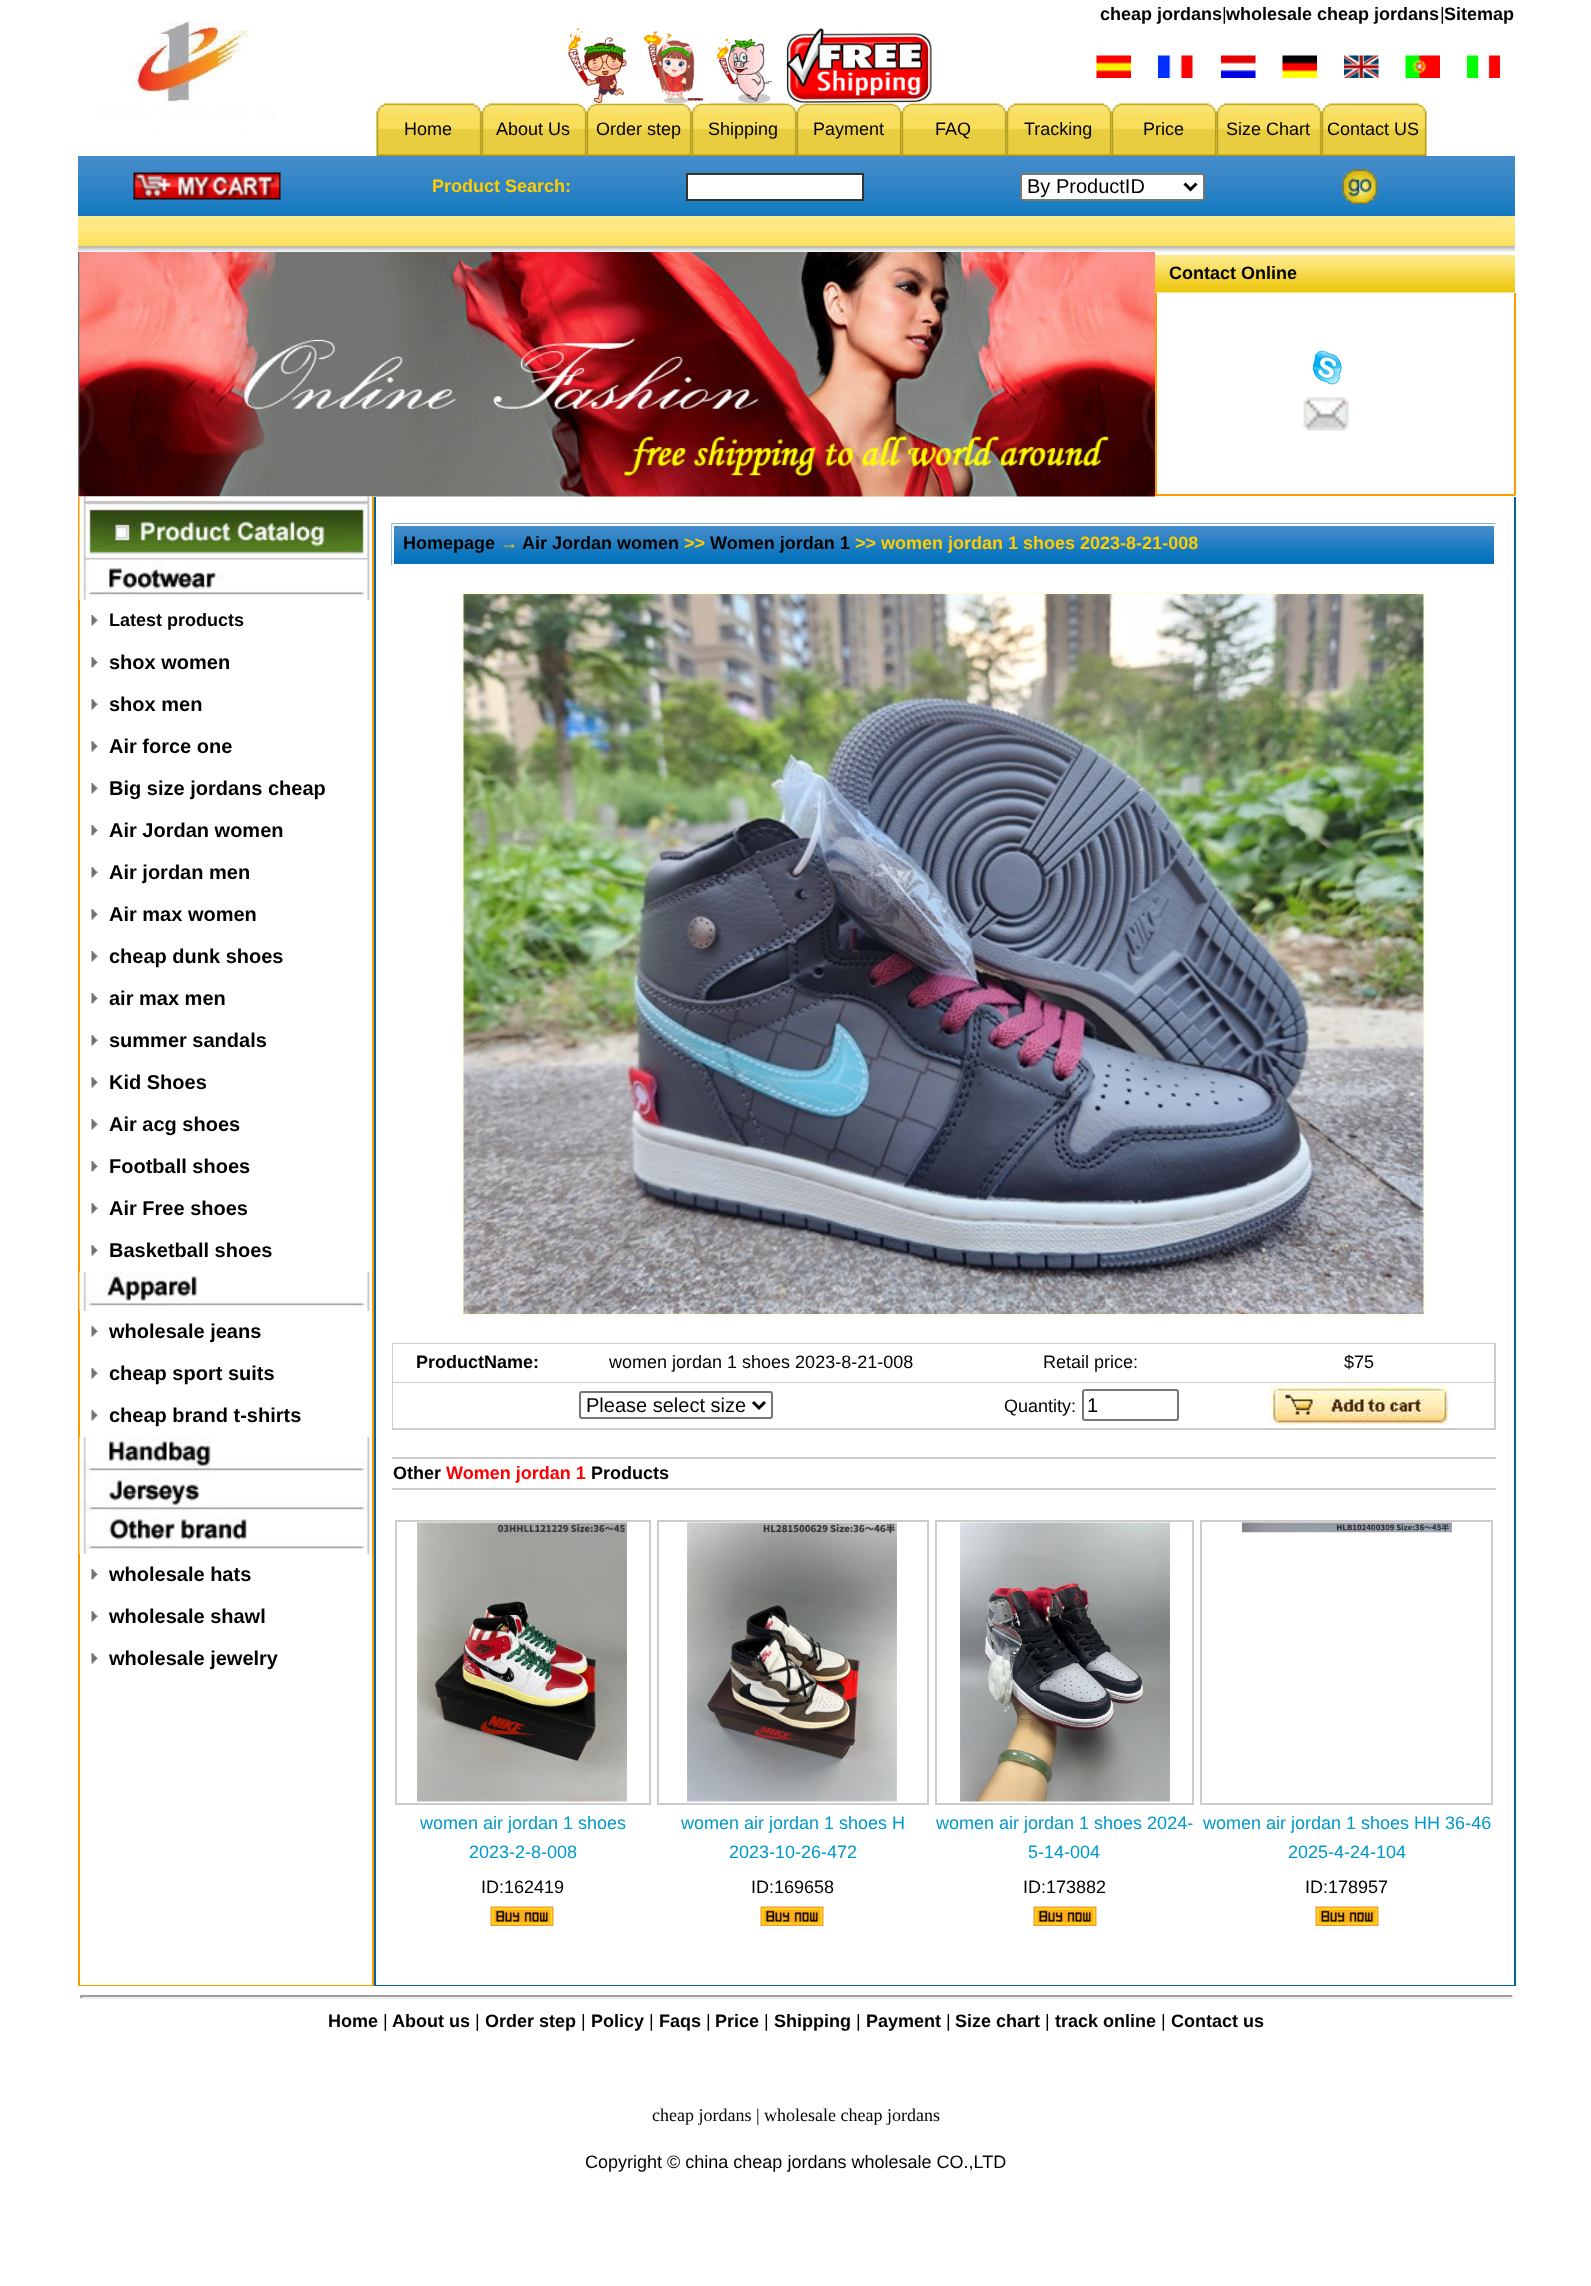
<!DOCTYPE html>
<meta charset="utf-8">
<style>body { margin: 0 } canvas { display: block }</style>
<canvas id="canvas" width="1591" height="2286"></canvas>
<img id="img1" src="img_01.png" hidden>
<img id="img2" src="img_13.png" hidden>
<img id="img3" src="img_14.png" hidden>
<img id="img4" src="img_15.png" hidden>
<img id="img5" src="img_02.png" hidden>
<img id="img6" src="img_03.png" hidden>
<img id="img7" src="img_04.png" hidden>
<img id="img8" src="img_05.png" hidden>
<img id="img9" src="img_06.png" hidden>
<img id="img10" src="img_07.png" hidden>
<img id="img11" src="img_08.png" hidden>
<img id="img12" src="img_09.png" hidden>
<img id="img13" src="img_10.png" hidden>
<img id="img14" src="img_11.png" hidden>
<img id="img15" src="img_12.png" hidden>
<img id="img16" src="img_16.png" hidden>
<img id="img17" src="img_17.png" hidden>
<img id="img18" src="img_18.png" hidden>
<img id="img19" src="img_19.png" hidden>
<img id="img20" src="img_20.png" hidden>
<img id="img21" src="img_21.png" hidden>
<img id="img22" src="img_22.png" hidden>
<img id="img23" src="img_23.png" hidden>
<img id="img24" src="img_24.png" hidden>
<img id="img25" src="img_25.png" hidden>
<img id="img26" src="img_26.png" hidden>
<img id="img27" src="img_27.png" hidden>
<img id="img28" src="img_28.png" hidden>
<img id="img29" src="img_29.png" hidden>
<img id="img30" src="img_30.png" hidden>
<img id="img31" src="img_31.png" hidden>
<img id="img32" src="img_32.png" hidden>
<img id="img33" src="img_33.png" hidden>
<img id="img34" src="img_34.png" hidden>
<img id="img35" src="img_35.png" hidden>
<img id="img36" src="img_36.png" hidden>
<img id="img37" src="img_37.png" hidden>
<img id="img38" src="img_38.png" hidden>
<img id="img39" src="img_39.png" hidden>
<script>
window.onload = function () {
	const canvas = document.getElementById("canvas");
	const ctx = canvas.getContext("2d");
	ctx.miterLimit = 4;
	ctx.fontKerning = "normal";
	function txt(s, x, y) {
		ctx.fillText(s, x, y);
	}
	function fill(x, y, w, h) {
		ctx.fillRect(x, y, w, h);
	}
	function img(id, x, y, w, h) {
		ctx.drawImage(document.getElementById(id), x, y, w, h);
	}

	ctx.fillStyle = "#FFFFFF";
	fill(0, 0, 1591, 2286);
	img("img1", 94, 17, 183, 118);
	img("img2", 376, 103, 106, 53);
	img("img3", 481, 103, 106, 53);
	img("img4", 586, 103, 106, 53);
	img("img5", 559, 28, 76, 76);
	img("img4", 691, 103, 106, 53);
	img("img6", 634, 30, 76, 74);
	img("img7", 717, 37, 56, 67);
	img("img3", 796, 103, 106, 53);
	img("img3", 901, 103, 106, 53);
	img("img8", 784, 28, 149, 76);
	img("img9", 1096, 55, 35, 23);
	img("img10", 1158, 55, 35, 23);
	img("img11", 1221, 55, 35, 23);
	img("img12", 1282, 55, 35, 23);
	img("img13", 1344, 55, 35, 23);
	img("img14", 1405, 55, 35, 23);
	img("img15", 1467, 55, 33, 23);
	img("img3", 1006, 103, 106, 53);
	img("img3", 1111, 103, 106, 53);
	img("img3", 1216, 103, 106, 53);
	img("img4", 1321, 103, 106, 53);
	img("img16", 78, 156, 1437, 60);
	img("img17", 133, 172, 148, 28);
	ctx.beginPath();
	ctx.rect(687, 174, 176, 26);
	ctx.fill();
	ctx.strokeStyle = "#333333";
	ctx.lineWidth = 2;
	ctx.stroke();
	ctx.beginPath();
	ctx.roundRect(1021, 174, 183, 26, 2);
	ctx.fill();
	ctx.strokeStyle = "#767676";
	ctx.stroke();
	ctx.beginPath();
	ctx.moveTo(1184.5, 183.5);
	ctx.lineTo(1190.5, 189.5);
	ctx.lineTo(1196.5, 183.5);
	ctx.strokeStyle = "#000000";
	ctx.lineWidth = 3;
	ctx.stroke();
	img("img18", 1342, 169, 35, 35);
	img("img19", 78, 216, 1437, 36);
	img("img20", 78, 252, 1077, 245);
	img("img21", 1155, 255, 360, 38);
	ctx.fillStyle = "#FF9900";
	fill(1514, 293, 2, 202);
	fill(1155, 494, 360, 2);
	fill(1155, 293, 2, 202);
	img("img22", 1312, 350, 30, 35);
	img("img23", 1303, 397, 46, 34);
	fill(372, 497, 2, 1489);
	fill(78, 1985, 296, 1);
	fill(78, 497, 2, 1489);
	img("img24", 79, 496, 293, 65);
	img("img25", 79, 561, 291, 39);
	img("img26", 91, 615, 7, 11);
	img("img26", 91, 657, 7, 11);
	img("img26", 91, 699, 7, 11);
	img("img26", 91, 741, 7, 11);
	img("img26", 91, 783, 7, 11);
	img("img26", 91, 825, 7, 11);
	img("img26", 91, 867, 7, 11);
	img("img26", 91, 909, 7, 11);
	img("img26", 91, 951, 7, 11);
	img("img26", 91, 993, 7, 11);
	img("img26", 91, 1035, 7, 11);
	img("img26", 91, 1077, 7, 11);
	img("img26", 91, 1119, 7, 11);
	img("img26", 91, 1161, 7, 11);
	img("img26", 91, 1203, 7, 11);
	img("img26", 91, 1245, 7, 11);
	img("img27", 79, 1272, 291, 39);
	img("img26", 91, 1326, 7, 11);
	img("img26", 91, 1368, 7, 11);
	img("img26", 91, 1410, 7, 11);
	img("img28", 79, 1437, 291, 39);
	img("img29", 79, 1476, 291, 39);
	img("img30", 79, 1515, 291, 39);
	img("img26", 91, 1569, 7, 11);
	img("img26", 91, 1611, 7, 11);
	img("img26", 91, 1653, 7, 11);
	ctx.fillStyle = "#006699";
	fill(1514, 497, 2, 1489);
	fill(374, 1985, 1141, 1);
	fill(374, 497, 2, 1489);
	img("img31", 391, 523, 1105, 43);
	ctx.strokeStyle = "#FFFFFF";
	ctx.lineWidth = 2;
	ctx.strokeRect(393, 525, 1102, 40);
	ctx.beginPath();
	ctx.moveTo(462, 593);
	ctx.lineTo(1425, 593);
	ctx.strokeStyle = "#FFFFCC";
	ctx.lineWidth = 1.5;
	ctx.setLineDash([4.5, 2.98]);
	ctx.stroke();
	ctx.beginPath();
	ctx.moveTo(1424, 592.5);
	ctx.lineTo(1424, 1315.5);
	ctx.stroke();
	ctx.beginPath();
	ctx.moveTo(462, 1315);
	ctx.lineTo(1425, 1315);
	ctx.stroke();
	ctx.beginPath();
	ctx.moveTo(463, 592.5);
	ctx.lineTo(463, 1315.5);
	ctx.stroke();
	img("img32", 463, 594, 961, 720);
	ctx.fillStyle = "#CCCCCC";
	fill(392, 1343, 1104, 87);
	ctx.fillStyle = "#FFFFFF";
	fill(393, 1344, 1101, 38);
	fill(393, 1383, 1101, 45);
	ctx.beginPath();
	ctx.roundRect(580, 1392, 192, 26, 2);
	ctx.strokeStyle = "#767676";
	ctx.lineWidth = 2;
	ctx.setLineDash([]);
	ctx.stroke();
	ctx.beginPath();
	ctx.moveTo(753, 1402);
	ctx.lineTo(759, 1408);
	ctx.lineTo(765, 1402);
	ctx.strokeStyle = "#000000";
	ctx.lineWidth = 3;
	ctx.stroke();
	ctx.beginPath();
	ctx.roundRect(1083, 1390, 95, 30, 2);
	ctx.strokeStyle = "#767676";
	ctx.lineWidth = 2;
	ctx.stroke();
	img("img33", 1269, 1384, 180, 41);
	ctx.fillStyle = "#CCCCCC";
	fill(392, 1457, 1104, 2);
	fill(392, 1488, 1104, 2);
	ctx.strokeStyle = "#CCCCCC";
	ctx.strokeRect(396, 1521, 254, 283);
	img("img34", 417, 1522, 210, 280);
	img("img35", 490, 1906, 64, 20);
	ctx.strokeRect(658, 1521, 270, 283);
	img("img36", 687, 1522, 210, 280);
	img("img35", 760, 1906, 64, 20);
	ctx.strokeRect(936, 1521, 257, 283);
	img("img37", 960, 1522, 210, 280);
	img("img35", 1033, 1906, 64, 20);
	ctx.strokeRect(1201, 1521, 291, 283);
	img("img38", 1242, 1522, 210, 11);
	img("img39", 1315, 1906, 64, 20);
	ctx.fillStyle = "#9F9F9F";
	fill(80, 1995, 1434, 2);
	ctx.fillStyle = "#EEEEEE";
	fill(1512, 1995, 2, 3);
	fill(80, 1997, 1434, 2);
	ctx.fillStyle = "#9F9F9F";
	fill(80, 1995, 2, 3);
	ctx.font = "bold 18px Liberation Sans";
	ctx.fillStyle = "#000000";
	txt("cheap jordans", 1100, 20);
	ctx.font = "18px Liberation Sans";
	txt("|", 1222, 20);
	ctx.font = "bold 18px Liberation Sans";
	txt("wholesale cheap jordans Sitemap", 1226, 20);
	ctx.font = "18px Liberation Sans";
	txt("|", 1440, 20);
	txt("Home", 404, 135);
	txt("About Us", 496, 135);
	txt("Order step", 596, 135);
	txt("Shipping", 708, 135);
	txt("Payment", 813, 135);
	txt("FAQ", 935, 135);
	txt("Tracking", 1024, 135);
	txt("Price", 1143, 135);
	txt("Size Chart", 1226, 135);
	txt("Contact US", 1327, 135);
	ctx.font = "bold 18px Liberation Sans";
	ctx.fillStyle = "#FFCC00";
	txt("Product Search:", 432, 192);
	ctx.font = "20px Liberation Sans";
	ctx.fillStyle = "#000000";
	txt("By ProductID", 1027, 193);
	ctx.font = "bold 18px Liberation Sans";
	txt("Contact Online", 1169, 279);
	txt("Latest products", 109, 626);
	ctx.font = "bold 20px Liberation Sans";
	txt("shox women", 109, 669);
	txt("shox men", 109, 711);
	txt("Air force one", 109, 753);
	txt("Big size jordans cheap", 109, 795);
	txt("Air Jordan women", 109, 837);
	txt("Air jordan men", 109, 879);
	txt("Air max women", 109, 921);
	txt("cheap dunk shoes", 109, 963);
	txt("air max men", 109, 1005);
	txt("summer sandals", 109, 1047);
	txt("Kid Shoes", 109, 1089);
	txt("Air acg shoes", 109, 1131);
	txt("Football shoes", 109, 1173);
	txt("Air Free shoes", 109, 1215);
	txt("Basketball shoes", 109, 1257);
	txt("wholesale jeans", 109, 1338);
	txt("cheap sport suits", 109, 1380);
	txt("cheap brand t-shirts", 109, 1422);
	txt("wholesale hats", 109, 1581);
	txt("wholesale shawl", 109, 1623);
	txt("wholesale jewelry", 109, 1665);
	ctx.font = "bold 18px Liberation Sans";
	txt("Homepage", 403, 549);
	ctx.fillStyle = "#FFCC00";
	txt("→", 500, 549);
	ctx.fillStyle = "#000000";
	txt("Air Jordan women", 522, 549);
	ctx.fillStyle = "#FFCC00";
	txt(">>", 684, 549);
	ctx.fillStyle = "#000000";
	txt("Women jordan 1", 710, 549);
	ctx.fillStyle = "#FFCC00";
	txt(">> women jordan 1 shoes 2023-8-21-008", 855, 549);
	ctx.fillStyle = "#000000";
	txt("ProductName:", 416, 1368);
	ctx.font = "18px Liberation Sans";
	txt("women jordan 1 shoes 2023-8-21-008", 609, 1368);
	txt("Retail price:", 1043, 1368);
	txt("$75", 1344, 1368);
	ctx.font = "20px Liberation Sans";
	txt("Please select size", 586, 1412);
	ctx.font = "18px Liberation Sans";
	txt("Quantity:", 1004, 1412);
	ctx.font = "20px Liberation Sans";
	txt("1", 1087, 1412);
	ctx.font = "bold 18px Liberation Sans";
	txt("Other", 393, 1479);
	ctx.fillStyle = "#FF0000";
	txt("Women jordan 1", 446, 1479);
	ctx.fillStyle = "#000000";
	txt("Products", 591, 1479);
	ctx.font = "18px Liberation Sans";
	ctx.fillStyle = "#0099CC";
	txt("women air jordan 1 shoes", 420, 1829);
	txt("2023-2-8-008", 469, 1858);
	ctx.fillStyle = "#000000";
	txt("ID:162419", 481, 1893);
	ctx.fillStyle = "#0099CC";
	txt("women air jordan 1 shoes H", 681, 1829);
	txt("2023-10-26-472", 729, 1858);
	ctx.fillStyle = "#000000";
	txt("ID:169658", 751, 1893);
	ctx.fillStyle = "#0099CC";
	txt("women air jordan 1 shoes 2024-", 936, 1829);
	txt("5-14-004", 1028, 1858);
	ctx.fillStyle = "#000000";
	txt("ID:173882", 1023, 1893);
	ctx.fillStyle = "#0099CC";
	txt("women air jordan 1 shoes HH 36-46", 1203, 1829);
	txt("2025-4-24-104", 1288, 1858);
	ctx.fillStyle = "#000000";
	txt("ID:178957", 1305, 1893);
	ctx.font = "bold 18px Liberation Sans";
	txt("Home", 328, 2027);
	ctx.font = "18px Liberation Sans";
	txt("|", 383, 2027);
	ctx.font = "bold 18px Liberation Sans";
	txt("About us", 392, 2027);
	ctx.font = "18px Liberation Sans";
	txt("|", 475, 2027);
	ctx.font = "bold 18px Liberation Sans";
	txt("Order step", 485, 2027);
	ctx.font = "18px Liberation Sans";
	txt("|", 581, 2027);
	ctx.font = "bold 18px Liberation Sans";
	txt("Policy", 591, 2027);
	ctx.font = "18px Liberation Sans";
	txt("|", 649, 2027);
	ctx.font = "bold 18px Liberation Sans";
	txt("Faqs", 659, 2027);
	ctx.font = "18px Liberation Sans";
	txt("|", 706, 2027);
	ctx.font = "bold 18px Liberation Sans";
	txt("Price", 715, 2027);
	ctx.font = "18px Liberation Sans";
	txt("|", 764, 2027);
	ctx.font = "bold 18px Liberation Sans";
	txt("Shipping", 774, 2027);
	ctx.font = "18px Liberation Sans";
	txt("|", 856, 2027);
	ctx.font = "bold 18px Liberation Sans";
	txt("Payment", 866, 2027);
	ctx.font = "18px Liberation Sans";
	txt("|", 946, 2027);
	ctx.font = "bold 18px Liberation Sans";
	txt("Size chart", 955, 2027);
	ctx.font = "18px Liberation Sans";
	txt("|", 1045, 2027);
	ctx.font = "bold 18px Liberation Sans";
	txt("track online", 1055, 2027);
	ctx.font = "18px Liberation Sans";
	txt("|", 1161, 2027);
	ctx.font = "bold 18px Liberation Sans";
	txt("Contact us", 1171, 2027);
	ctx.font = "18px Liberation Serif";
	txt("cheap jordans | wholesale cheap jordans", 652, 2121);
	ctx.font = "18px Liberation Sans";
	txt("Copyright © china cheap jordans wholesale CO.,LTD", 585, 2168);
};
</script>
